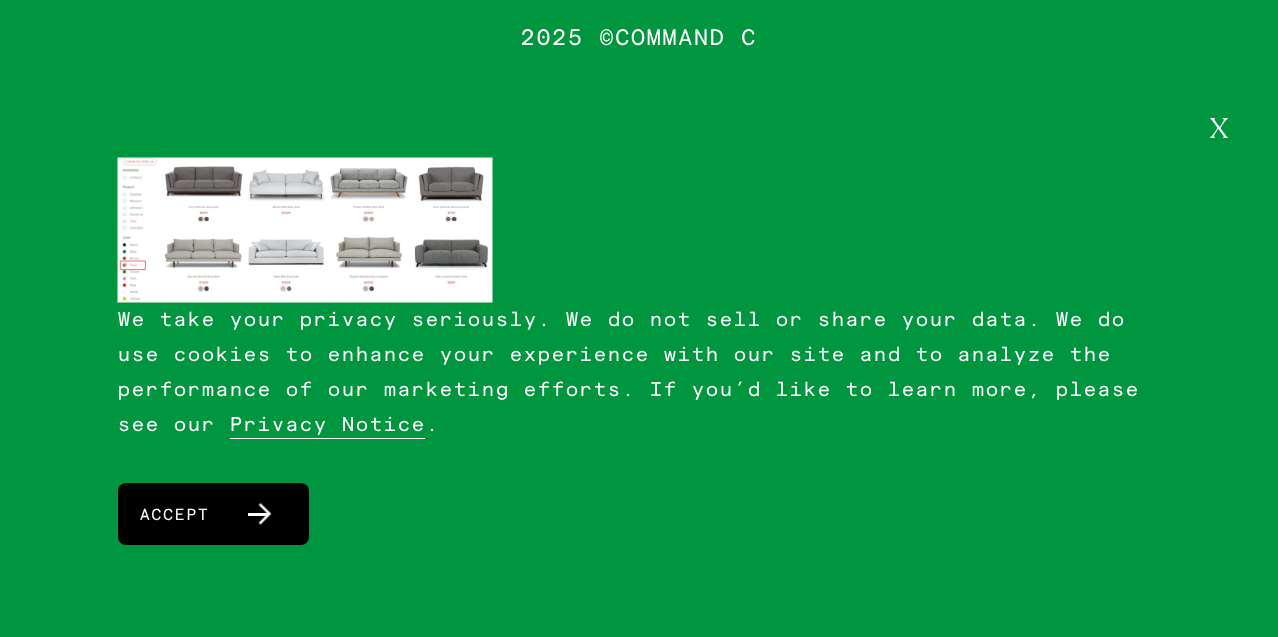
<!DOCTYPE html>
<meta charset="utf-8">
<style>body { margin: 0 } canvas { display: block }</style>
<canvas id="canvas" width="1278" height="637"></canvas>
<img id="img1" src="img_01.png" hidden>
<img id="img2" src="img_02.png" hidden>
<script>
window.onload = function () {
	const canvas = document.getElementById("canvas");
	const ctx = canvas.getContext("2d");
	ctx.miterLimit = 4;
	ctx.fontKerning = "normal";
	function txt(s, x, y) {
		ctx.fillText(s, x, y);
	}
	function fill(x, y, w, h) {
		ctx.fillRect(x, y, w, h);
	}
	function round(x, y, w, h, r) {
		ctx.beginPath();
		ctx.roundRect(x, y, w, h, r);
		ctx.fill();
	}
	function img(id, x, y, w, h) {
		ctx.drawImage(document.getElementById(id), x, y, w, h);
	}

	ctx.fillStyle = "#00953F";
	fill(0, 0, 1278, 637);
	img("img1", 117, 157, 376, 146);
	ctx.fillStyle = "#FFFFFF";
	fill(230, 438, 195, 1);
	ctx.fillStyle = "#000000";
	round(118, 483, 191, 62, 8);
	ctx.fillStyle = "#FDFDF8";
	fill(248, 513, 20, 3);
	img("img2", 258, 502, 14, 23);
	ctx.letterSpacing = "2.25px";
	ctx.font = "22.5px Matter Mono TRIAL";
	ctx.fillStyle = "#FFFFFF";
	txt("2025 ©COMMAND C", 521, 45);
	ctx.letterSpacing = "0px";
	ctx.font = "28px 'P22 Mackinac'";
	txt("X", 1209, 138);
	ctx.letterSpacing = "2px";
	ctx.font = "20px Matter Mono TRIAL";
	txt("We take your privacy seriously. We do not sell or share your data. We do", 118, 326);
	txt("use cookies to enhance your experience with our site and to analyze the", 118, 361);
	txt("performance of our marketing efforts. If you’d like to learn more, please", 118, 396);
	txt("see our Privacy Notice.", 118, 431);
	ctx.font = "16px Matter Mono TRIAL";
	ctx.fillStyle = "#FDFDF8";
	txt("ACCEPT", 140, 520);
};
</script>
